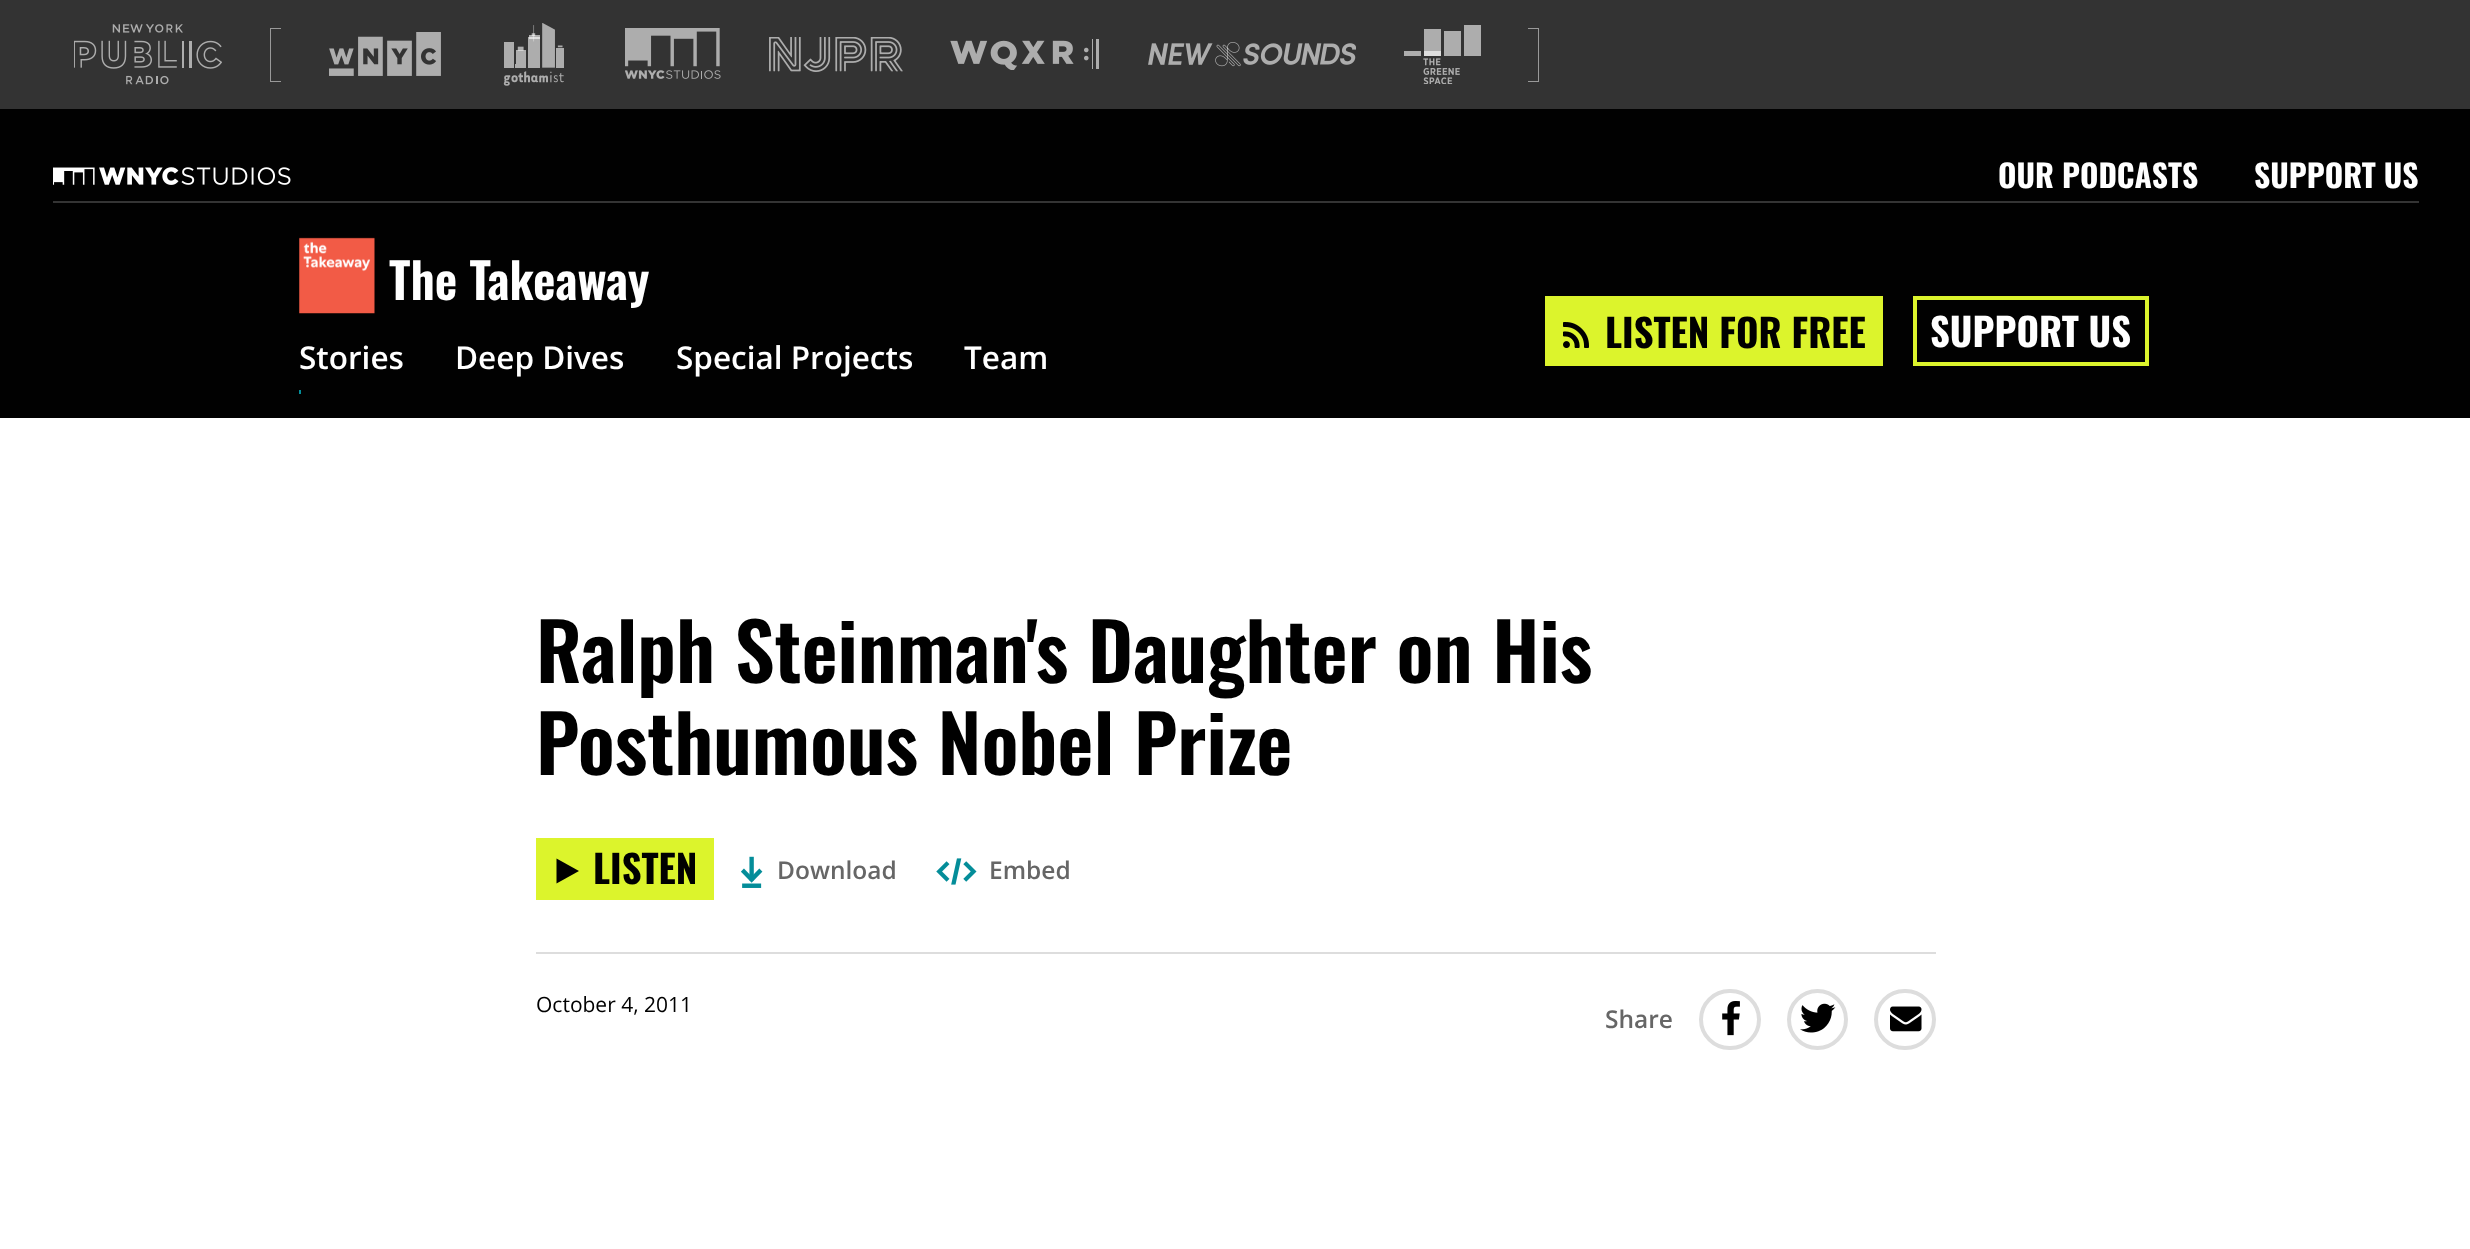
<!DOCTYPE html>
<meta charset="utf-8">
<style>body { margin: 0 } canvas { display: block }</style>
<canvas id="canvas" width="2470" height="1249"></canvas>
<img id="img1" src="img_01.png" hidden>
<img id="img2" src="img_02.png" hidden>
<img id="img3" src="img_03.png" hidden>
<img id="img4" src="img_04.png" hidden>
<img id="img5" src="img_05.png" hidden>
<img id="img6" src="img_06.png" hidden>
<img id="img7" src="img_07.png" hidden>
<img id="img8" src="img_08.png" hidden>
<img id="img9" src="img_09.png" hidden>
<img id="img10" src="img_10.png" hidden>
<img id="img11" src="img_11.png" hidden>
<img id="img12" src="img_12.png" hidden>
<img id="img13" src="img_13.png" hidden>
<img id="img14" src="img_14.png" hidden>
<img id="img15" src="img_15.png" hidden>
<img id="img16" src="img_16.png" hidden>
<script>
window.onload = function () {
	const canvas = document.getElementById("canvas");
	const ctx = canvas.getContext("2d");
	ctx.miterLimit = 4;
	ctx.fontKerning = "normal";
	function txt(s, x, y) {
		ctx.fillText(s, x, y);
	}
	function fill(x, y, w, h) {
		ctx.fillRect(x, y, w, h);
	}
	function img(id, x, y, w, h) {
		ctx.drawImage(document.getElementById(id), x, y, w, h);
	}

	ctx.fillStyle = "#FFFFFF";
	fill(0, 0, 2470, 1249);
	ctx.fillStyle = "#333333";
	fill(0, 0, 2470, 109);
	img("img1", 74, 24, 148, 61);
	ctx.fillStyle = "#999999";
	ctx.beginPath();
	ctx.moveTo(271, 82);
	ctx.lineTo(270, 82);
	ctx.lineTo(270, 28);
	ctx.lineTo(281, 28);
	ctx.lineTo(281, 29);
	ctx.lineTo(271, 29);
	ctx.lineTo(271, 81);
	ctx.lineTo(281, 81);
	ctx.lineTo(281, 82);
	ctx.closePath();
	ctx.fill();
	img("img2", 329, 32, 112, 44);
	img("img3", 503, 23, 61, 63);
	img("img4", 625, 28, 96, 51);
	img("img5", 769, 37, 134, 35);
	img("img6", 950, 39, 149, 31);
	img("img7", 1148, 42, 208, 25);
	img("img8", 1404, 25, 77, 59);
	ctx.beginPath();
	ctx.moveTo(1538, 28);
	ctx.lineTo(1539, 28);
	ctx.lineTo(1539, 82);
	ctx.lineTo(1528, 82);
	ctx.lineTo(1528, 81);
	ctx.lineTo(1538, 81);
	ctx.lineTo(1538, 29);
	ctx.lineTo(1528, 29);
	ctx.lineTo(1528, 28);
	ctx.closePath();
	ctx.fill();
	ctx.fillStyle = "#010101";
	fill(0, 109, 2470, 309);
	img("img9", 53, 167, 238, 18);
	ctx.fillStyle = "#343434";
	fill(53, 201, 2366, 2);
	img("img10", 299, 237, 76, 77);
	ctx.fillStyle = "#DCF42C";
	fill(1545, 296, 338, 70);
	img("img11", 1563, 322, 26, 26);
	ctx.strokeStyle = "#DCF42C";
	ctx.lineWidth = 4;
	ctx.strokeRect(1915, 298, 232, 66);
	ctx.fillStyle = "#048D99";
	fill(299, 390, 2, 4);
	ctx.fillStyle = "#DCF42C";
	fill(536, 838, 178, 62);
	ctx.fillStyle = "#000000";
	ctx.beginPath();
	ctx.moveTo(579, 871);
	ctx.lineTo(556.5, 883.5);
	ctx.lineTo(556.5, 858.5);
	ctx.closePath();
	ctx.fill("evenodd");
	img("img12", 741, 856, 22, 32);
	img("img13", 936, 858, 41, 27);
	ctx.fillStyle = "#DDDDDD";
	fill(536, 952, 1400, 2);
	ctx.beginPath();
	ctx.roundRect(1701, 991, 58, 57, 28.5);
	ctx.strokeStyle = "#DDDDDD";
	ctx.stroke();
	img("img14", 1722, 1001, 18, 35);
	ctx.beginPath();
	ctx.arc(1817.5, 1019.5, 28.5, 0, Math.PI * 2);
	ctx.stroke();
	img("img15", 1800, 1003, 36, 30);
	ctx.beginPath();
	ctx.roundRect(1876, 991, 58, 57, 28.5);
	ctx.stroke();
	img("img16", 1890, 1006, 32, 26);
	ctx.font = "bold 31.5px Oswald";
	ctx.fillStyle = "#FFFFFF";
	txt("OUR PODCASTS", 1998, 188);
	txt("SUPPORT US", 2254, 188);
	ctx.font = "600 49px Oswald";
	txt("The Takeaway", 389, 300);
	ctx.font = "bold 38.5px Oswald";
	ctx.fillStyle = "#000000";
	txt("LISTEN FOR FREE", 1605, 348);
	ctx.fillStyle = "#FFFFFF";
	txt("SUPPORT US", 1930, 347);
	ctx.font = "600 31.5px Open Sans";
	txt("Stories", 299, 369);
	txt("Deep Dives", 455, 369);
	txt("Special Projects", 676, 369);
	txt("Team", 964, 369);
	ctx.font = "600 78.75px Oswald";
	ctx.fillStyle = "#000000";
	txt("Ralph Steinman's Daughter on His", 536, 683);
	txt("Posthumous Nobel Prize", 536, 775);
	ctx.font = "bold 38.5px Oswald";
	txt("LISTEN", 593, 884);
	ctx.font = "600 24.5px Open Sans";
	ctx.fillStyle = "#666666";
	txt("Download", 777, 879);
	txt("Embed", 989, 879);
	ctx.font = "21px Open Sans";
	ctx.fillStyle = "#000000";
	txt("October 4, 2011", 536, 1012);
	ctx.font = "600 24.5px Open Sans";
	ctx.fillStyle = "#666666";
	txt("Share", 1605, 1028);
};
</script>
